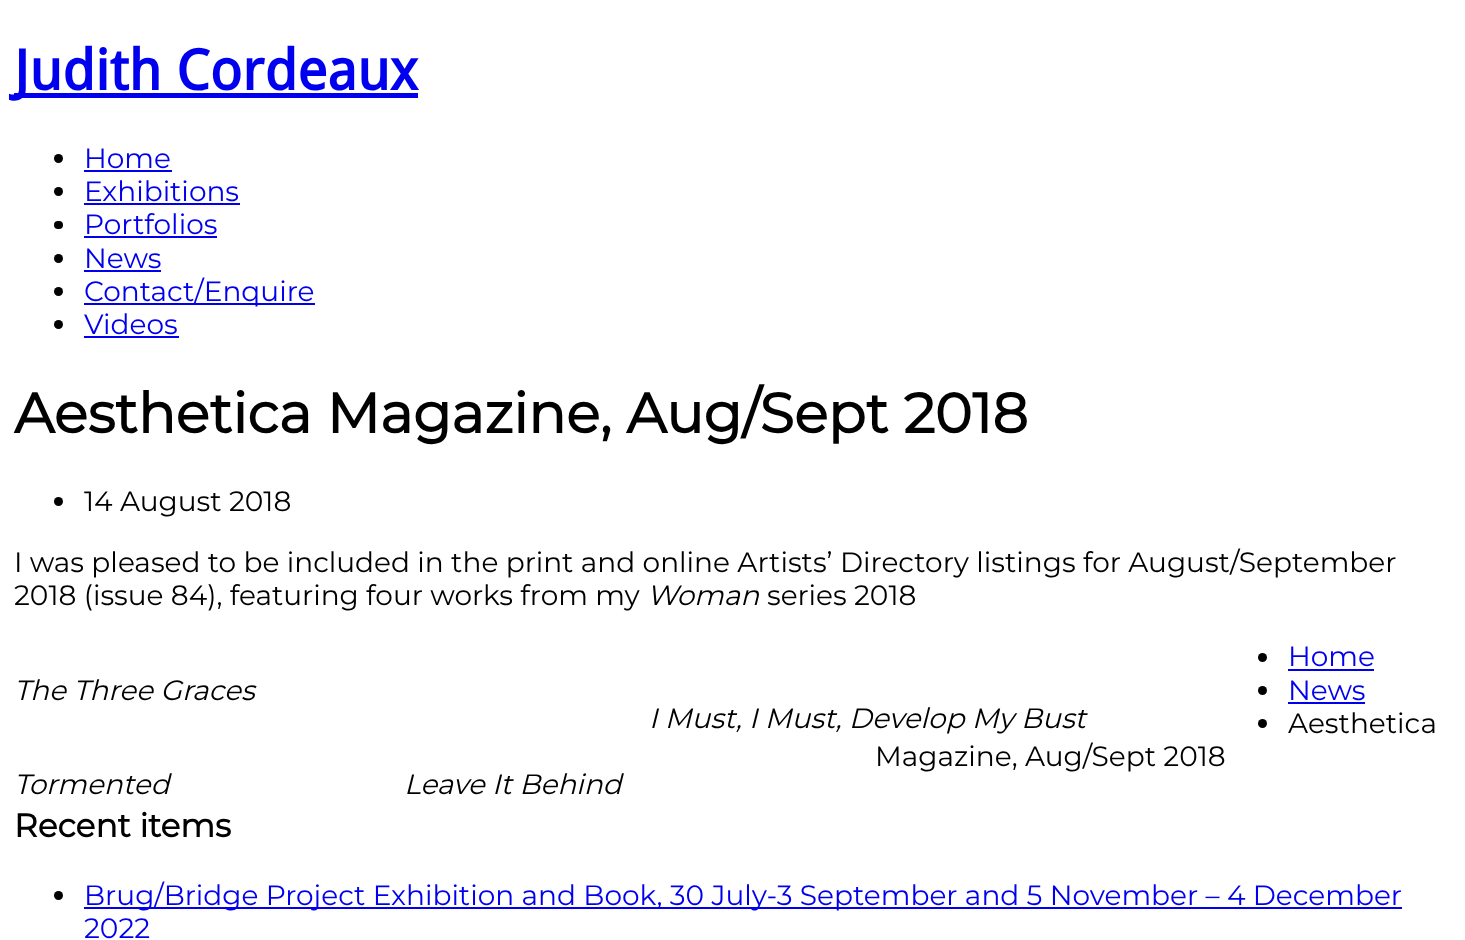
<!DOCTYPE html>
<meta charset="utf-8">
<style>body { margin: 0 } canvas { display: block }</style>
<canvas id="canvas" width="1465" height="940"></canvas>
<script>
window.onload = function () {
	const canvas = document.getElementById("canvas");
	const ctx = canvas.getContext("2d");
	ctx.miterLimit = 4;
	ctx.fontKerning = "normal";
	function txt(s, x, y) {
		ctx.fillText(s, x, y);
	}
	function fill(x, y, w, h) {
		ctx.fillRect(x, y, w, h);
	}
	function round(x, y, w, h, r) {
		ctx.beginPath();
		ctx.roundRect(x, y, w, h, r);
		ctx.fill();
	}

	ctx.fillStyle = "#FFFFFF";
	fill(0, 0, 1465, 940);
	ctx.fillStyle = "#0000EE";
	fill(14, 93, 404, 5);
	ctx.fillStyle = "#000000";
	ctx.beginPath();
	ctx.arc(58.5, 158.5, 4.5, 0, Math.PI * 2);
	ctx.fill();
	ctx.fillStyle = "#0000EE";
	fill(84, 170, 88, 2);
	ctx.fillStyle = "#000000";
	ctx.beginPath();
	ctx.arc(58.5, 191.5, 4.5, 0, Math.PI * 2);
	ctx.fill();
	ctx.fillStyle = "#0000EE";
	fill(84, 203, 156, 2);
	ctx.fillStyle = "#000000";
	round(54, 221, 9, 8, 4);
	ctx.fillStyle = "#0000EE";
	fill(84, 236, 133, 2);
	ctx.fillStyle = "#000000";
	ctx.beginPath();
	ctx.arc(58.5, 258.5, 4.5, 0, Math.PI * 2);
	ctx.fill();
	ctx.fillStyle = "#0000EE";
	fill(84, 270, 77, 2);
	ctx.fillStyle = "#000000";
	ctx.beginPath();
	ctx.arc(58.5, 291.5, 4.5, 0, Math.PI * 2);
	ctx.fill();
	ctx.fillStyle = "#0000EE";
	fill(84, 303, 231, 2);
	ctx.fillStyle = "#000000";
	ctx.beginPath();
	ctx.arc(58.5, 324.5, 4.5, 0, Math.PI * 2);
	ctx.fill();
	ctx.fillStyle = "#0000EE";
	fill(84, 336, 95, 2);
	ctx.fillStyle = "#000000";
	ctx.beginPath();
	ctx.arc(58.5, 501.5, 4.5, 0, Math.PI * 2);
	ctx.fill();
	ctx.beginPath();
	ctx.arc(1262.5, 657.5, 4.5, 0, Math.PI * 2);
	ctx.fill();
	ctx.fillStyle = "#0000EE";
	fill(1288, 669, 86, 2);
	ctx.fillStyle = "#000000";
	ctx.beginPath();
	ctx.arc(1262.5, 690.5, 4.5, 0, Math.PI * 2);
	ctx.fill();
	ctx.fillStyle = "#0000EE";
	fill(1288, 702, 77, 2);
	ctx.fillStyle = "#000000";
	ctx.beginPath();
	ctx.arc(1262.5, 723.5, 4.5, 0, Math.PI * 2);
	ctx.fill();
	ctx.beginPath();
	ctx.arc(58.5, 895.5, 4.5, 0, Math.PI * 2);
	ctx.fill();
	ctx.fillStyle = "#0000EE";
	fill(84, 907, 1318, 2);
	ctx.font = "bold 56px Droid Sans";
	txt("Judith Cordeaux", 14, 90);
	ctx.font = "100 28px Montserrat";
	txt("Home", 84, 168);
	txt("Exhibitions", 84, 201);
	txt("Portfolios", 84, 234);
	txt("News", 84, 268);
	txt("Contact/Enquire", 84, 301);
	txt("Videos", 84, 334);
	ctx.font = "bold 56px Montserrat";
	ctx.fillStyle = "#000000";
	txt("Aesthetica Magazine, Aug/Sept 2018", 14, 433);
	ctx.font = "100 28px Montserrat";
	txt("14 August 2018", 84, 511);
	txt("I was pleased to be included in the print and online Artists’ Directory listings for August/September", 14, 572);
	txt("2018 (issue 84), featuring four works from my", 14, 605);
	ctx.font = "italic 100 28px Montserrat";
	txt("Woman", 647, 605);
	ctx.font = "100 28px Montserrat";
	txt("series 2018", 767, 605);
	ctx.font = "italic 100 28px Montserrat";
	txt("The Three Graces", 14, 700);
	txt("I Must, I Must, Develop My Bust", 649, 728);
	txt("Tormented", 14, 794);
	txt("Leave It Behind", 404, 794);
	ctx.font = "100 28px Montserrat";
	ctx.fillStyle = "#0000EE";
	txt("Home", 1288, 666);
	txt("News", 1288, 700);
	ctx.fillStyle = "#000000";
	txt("Aesthetica", 1288, 733);
	txt("Magazine, Aug/Sept 2018", 875, 766);
	ctx.font = "bold 32.75px Montserrat";
	txt("Recent items", 14, 837);
	ctx.font = "100 28px Montserrat";
	ctx.fillStyle = "#0000EE";
	txt("Brug/Bridge Project Exhibition and Book, 30 July-3 September and 5 November – 4 December", 84, 905);
	txt("2022", 84, 938);
};
</script>
